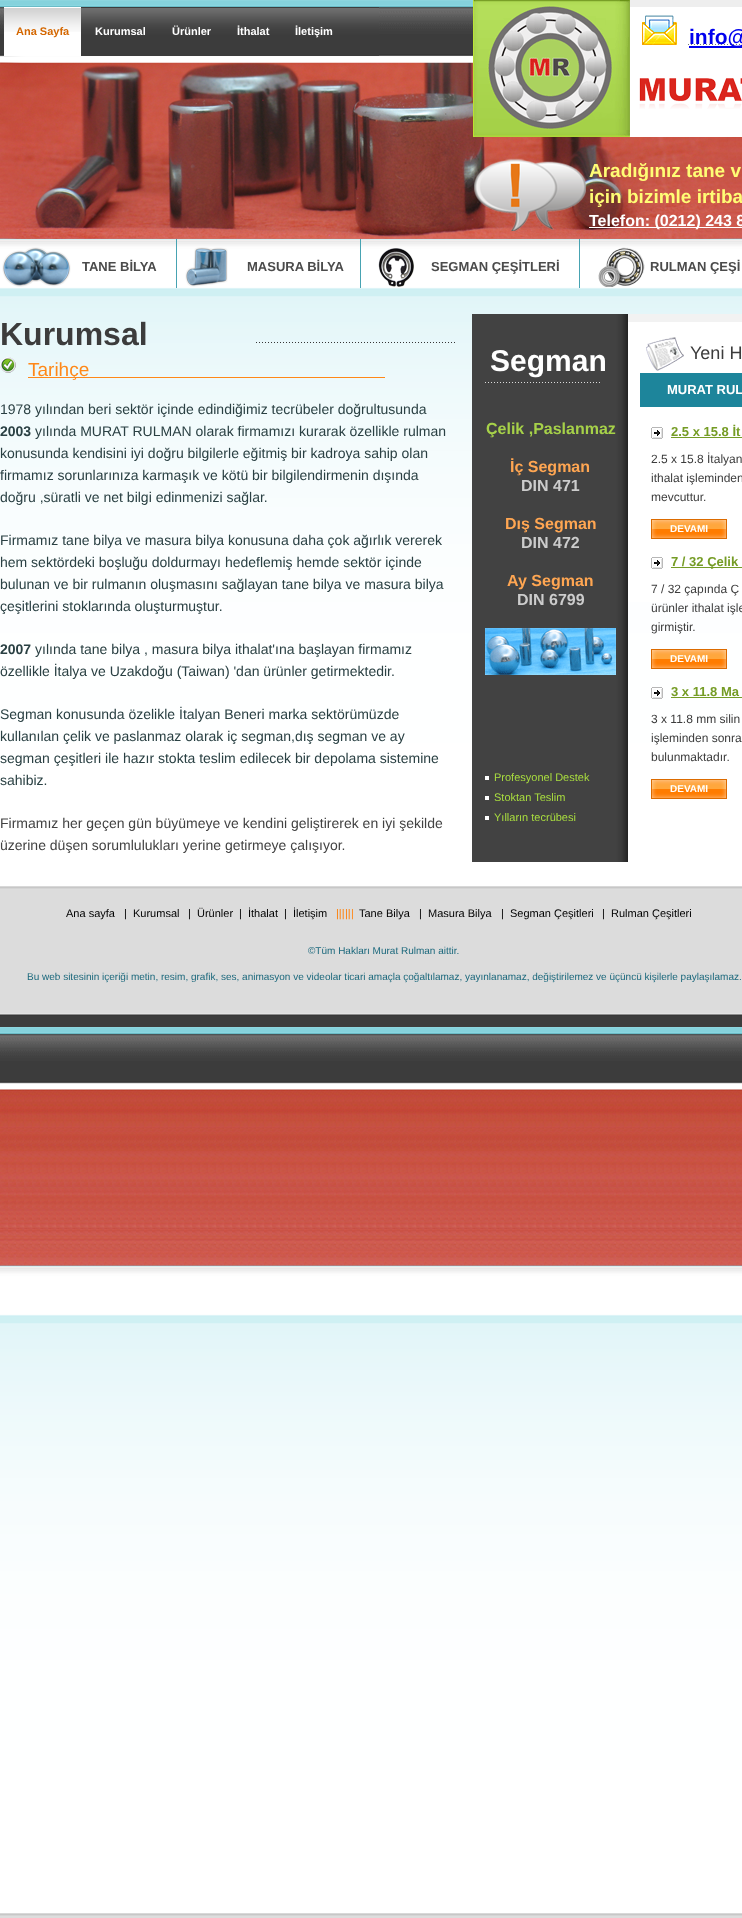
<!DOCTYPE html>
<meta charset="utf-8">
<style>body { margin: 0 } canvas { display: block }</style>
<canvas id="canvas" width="742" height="1918"></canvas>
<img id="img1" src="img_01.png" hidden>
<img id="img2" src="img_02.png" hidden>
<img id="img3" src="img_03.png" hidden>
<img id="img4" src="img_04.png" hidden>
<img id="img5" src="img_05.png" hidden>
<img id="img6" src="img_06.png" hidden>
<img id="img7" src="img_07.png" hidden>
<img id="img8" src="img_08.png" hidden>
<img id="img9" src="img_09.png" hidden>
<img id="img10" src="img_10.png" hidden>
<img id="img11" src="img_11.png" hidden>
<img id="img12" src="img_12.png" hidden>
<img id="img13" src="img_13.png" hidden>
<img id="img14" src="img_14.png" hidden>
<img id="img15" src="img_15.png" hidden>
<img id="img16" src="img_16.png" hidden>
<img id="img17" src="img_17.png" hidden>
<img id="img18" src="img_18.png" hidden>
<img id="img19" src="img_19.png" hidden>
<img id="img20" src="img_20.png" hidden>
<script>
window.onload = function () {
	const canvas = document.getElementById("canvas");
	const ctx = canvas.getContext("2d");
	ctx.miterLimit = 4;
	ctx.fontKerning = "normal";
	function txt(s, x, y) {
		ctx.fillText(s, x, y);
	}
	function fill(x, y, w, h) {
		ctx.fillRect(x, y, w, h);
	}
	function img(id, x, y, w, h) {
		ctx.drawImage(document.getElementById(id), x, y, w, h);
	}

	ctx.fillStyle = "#FFFFFF";
	fill(0, 0, 742, 1918);
	img("img1", 0, 0, 742, 1918);
	img("img2", 0, 56, 742, 183);
	img("img3", 81, 7, 298, 49);
	fill(4, 7, 77, 49);
	img("img4", 4, 8, 77, 24);
	img("img5", 473, 0, 157, 137);
	fill(630, 45, 112, 92);
	img("img6", 630, 0, 112, 45);
	ctx.fillStyle = "#0000EE";
	fill(689, 46, 53, 2);
	img("img7", 639, 78, 103, 31);
	img("img8", 474, 158, 112, 73);
	ctx.fillStyle = "#FFFFFF";
	fill(589, 227, 153, 1);
	ctx.fillStyle = "#47A3B2";
	fill(176, 239, 1, 49);
	img("img9", 2, 247, 69, 40);
	fill(360, 239, 1, 49);
	img("img10", 185, 247, 43, 40);
	fill(579, 239, 1, 49);
	img("img11", 378, 248, 36, 39);
	img("img12", 598, 247, 47, 40);
	img("img13", 256, 342, 199, 1);
	img("img14", 0, 357, 16, 16);
	ctx.fillStyle = "#FF8818";
	fill(28, 377, 357, 1);
	img("img15", 472, 314, 156, 548);
	img("img16", 485, 382, 115, 1);
	img("img17", 485, 628, 131, 47);
	ctx.fillStyle = "#FFFFFF";
	fill(485, 776, 4, 4);
	fill(485, 796, 4, 4);
	fill(485, 816, 4, 4);
	fill(628, 322, 114, 280);
	ctx.fillStyle = "#F2F2F2";
	fill(628, 314, 114, 8);
	img("img18", 646, 337, 38, 34);
	ctx.fillStyle = "#1D859B";
	fill(640, 373, 102, 34);
	img("img19", 651, 427, 12, 12);
	ctx.fillStyle = "#759C25";
	fill(671, 437, 71, 1);
	img("img20", 651, 519, 76, 20);
	img("img19", 651, 557, 12, 12);
	fill(671, 567, 71, 1);
	img("img20", 651, 649, 76, 20);
	img("img19", 651, 687, 12, 12);
	fill(671, 697, 71, 1);
	img("img20", 651, 779, 76, 20);
	ctx.font = "bold 11px Liberation Sans";
	ctx.fillStyle = "#D46701";
	txt("Ana Sayfa", 16, 35);
	ctx.fillStyle = "#FFFFFF";
	txt("Kurumsal", 95, 35);
	txt("Ürünler", 172, 35);
	txt("İthalat", 237, 35);
	txt("İletişim", 295, 35);
	ctx.font = "bold 21px Liberation Sans";
	ctx.fillStyle = "#0000EE";
	txt("info@", 689, 44);
	ctx.font = "bold 19px Liberation Sans";
	ctx.fillStyle = "#FFFD75";
	txt("Aradığınız tane v", 589, 177);
	txt("için bizimle irtiba", 589, 203);
	ctx.font = "bold 16px Liberation Sans";
	ctx.fillStyle = "#FFFFFF";
	txt("Telefon: (0212) 243 8", 589, 226);
	ctx.font = "bold 13px Liberation Sans";
	ctx.fillStyle = "#4B4B4B";
	txt("TANE BİLYA", 82, 271);
	txt("MASURA BİLYA", 247, 271);
	txt("SEGMAN ÇEŞİTLERİ", 431, 271);
	txt("RULMAN ÇEŞİ", 650, 271);
	ctx.font = "bold 32px Liberation Sans";
	ctx.fillStyle = "#3C3C3C";
	txt("Kurumsal", 0, 345);
	ctx.font = "19px Liberation Sans";
	ctx.fillStyle = "#FF8818";
	txt("Tarihçe", 28, 376);
	ctx.font = "14px Liberation Sans";
	ctx.fillStyle = "#2A4043";
	txt("1978 yılından beri sektör içinde edindiğimiz tecrübeler doğrultusunda", 0, 414);
	ctx.font = "bold 14px Liberation Sans";
	txt("2003", 0, 436);
	ctx.font = "14px Liberation Sans";
	txt("yılında MURAT RULMAN olarak firmamızı kurarak özellikle rulman", 35, 436);
	txt("konusunda kendisini iyi doğru bilgilerle eğitmiş bir kadroya sahip olan", 0, 458);
	txt("firmamız sorunlarınıza karmaşık ve kötü bir bilgilendirmenin dışında", 0, 480);
	txt("doğru ,süratli ve net bilgi edinmenizi sağlar.", 0, 502);
	txt("Firmamız tane bilya ve masura bilya konusuna daha çok ağırlık vererek", 0, 545);
	txt("hem sektördeki boşluğu doldurmayı hedeflemiş hemde sektör içinde", 0, 567);
	txt("bulunan ve bir rulmanın oluşmasını sağlayan tane bilya ve masura bilya", 0, 589);
	txt("çeşitlerini stoklarında oluşturmuştur.", 0, 611);
	ctx.font = "bold 14px Liberation Sans";
	txt("2007", 0, 654);
	ctx.font = "14px Liberation Sans";
	txt("yılında tane bilya , masura bilya ithalat'ına başlayan firmamız", 35, 654);
	txt("özellikle İtalya ve Uzakdoğu (Taiwan) 'dan ürünler getirmektedir.", 0, 676);
	txt("Segman konusunda özelikle İtalyan Beneri marka sektörümüzde", 0, 719);
	txt("kullanılan çelik ve paslanmaz olarak iç segman,dış segman ve ay", 0, 741);
	txt("segman çeşitleri ile hazır stokta teslim edilecek bir depolama sistemine", 0, 763);
	txt("sahibiz.", 0, 785);
	ctx.fillStyle = "#424242";
	txt("Firmamız her geçen gün büyümeye ve kendini geliştirerek en iyi şekilde", 0, 828);
	txt("üzerine düşen sorumlulukları yerine getirmeye çalışıyor.", 0, 850);
	ctx.font = "bold 30px Liberation Sans";
	ctx.fillStyle = "#FFFFFF";
	txt("Segman", 490, 371);
	ctx.font = "bold 16px Liberation Sans";
	ctx.fillStyle = "#A6D149";
	txt("Çelik ,Paslanmaz", 486, 434);
	ctx.fillStyle = "#FFA652";
	txt("İç Segman", 510, 472);
	ctx.fillStyle = "#CCCCCC";
	txt("DIN 471", 521, 491);
	ctx.fillStyle = "#FFA652";
	txt("Dış Segman", 505, 529);
	ctx.fillStyle = "#CCCCCC";
	txt("DIN 472", 521, 548);
	ctx.fillStyle = "#FFA652";
	txt("Ay Segman", 507, 586);
	ctx.fillStyle = "#CCCCCC";
	txt("DIN 6799", 517, 605);
	ctx.font = "11px Liberation Sans";
	ctx.fillStyle = "#A9DD3F";
	txt("Profesyonel Destek", 494, 781);
	txt("Stoktan Teslim", 494, 801);
	txt("Yılların tecrübesi", 494, 821);
	ctx.font = "18px Liberation Sans";
	ctx.fillStyle = "#3C3C3C";
	txt("Yeni H", 690, 359);
	ctx.font = "bold 13px Liberation Sans";
	ctx.fillStyle = "#FFFFFF";
	txt("MURAT RUL", 667, 394);
	ctx.fillStyle = "#759C25";
	txt("2.5 x 15.8 İt", 671, 436);
	ctx.font = "12px Liberation Sans";
	ctx.fillStyle = "#3C3C3C";
	txt("2.5 x 15.8 İtalyan", 651, 463);
	txt("ithalat işleminden", 651, 482);
	txt("mevcuttur.", 651, 501);
	ctx.font = "bold 10px Liberation Sans";
	ctx.fillStyle = "#FFFFFF";
	txt("DEVAMI", 670, 532);
	ctx.font = "bold 13px Liberation Sans";
	ctx.fillStyle = "#759C25";
	txt("7 / 32 Çelik", 671, 566);
	ctx.font = "12px Liberation Sans";
	ctx.fillStyle = "#3C3C3C";
	txt("7 / 32 çapında Ç", 651, 593);
	txt("ürünler ithalat işle", 651, 612);
	txt("girmiştir.", 651, 631);
	ctx.font = "bold 10px Liberation Sans";
	ctx.fillStyle = "#FFFFFF";
	txt("DEVAMI", 670, 662);
	ctx.font = "bold 13px Liberation Sans";
	ctx.fillStyle = "#759C25";
	txt("3 x 11.8 Ma", 671, 696);
	ctx.font = "12px Liberation Sans";
	ctx.fillStyle = "#3C3C3C";
	txt("3 x 11.8 mm silin", 651, 723);
	txt("işleminden sonra", 651, 742);
	txt("bulunmaktadır.", 651, 761);
	ctx.font = "bold 10px Liberation Sans";
	ctx.fillStyle = "#FFFFFF";
	txt("DEVAMI", 670, 792);
	ctx.font = "11px Liberation Sans";
	ctx.fillStyle = "#000000";
	txt("Ana sayfa", 66, 917);
	txt("|", 124, 917);
	txt("Kurumsal", 133, 917);
	txt("|", 188, 917);
	txt("Ürünler", 197, 917);
	txt("|", 239, 917);
	txt("İthalat", 248, 917);
	txt("|", 284, 917);
	txt("İletişim", 293, 917);
	ctx.fillStyle = "#FF7E04";
	txt("|||", 336, 917);
	txt("||", 345, 917);
	ctx.fillStyle = "#FF8818";
	txt("|", 351, 917);
	ctx.fillStyle = "#000000";
	txt("Tane Bilya", 359, 917);
	txt("|", 419, 917);
	txt("Masura Bilya", 428, 917);
	txt("|", 501, 917);
	txt("Segman Çeşitleri", 510, 917);
	txt("|", 602, 917);
	txt("Rulman Çeşitleri", 611, 917);
	ctx.font = "10px Liberation Sans";
	ctx.fillStyle = "#1B687C";
	txt("©Tüm Hakları Murat Rulman aittir.", 308, 954);
	txt("Bu web sitesinin içeriği metin, resim, grafik, ses, animasyon ve videolar ticari amaçla çoğaltılamaz, yayınlanamaz, değiştirilemez ve üçüncü kişilerle paylaşılamaz.", 27, 980);
};
</script>
